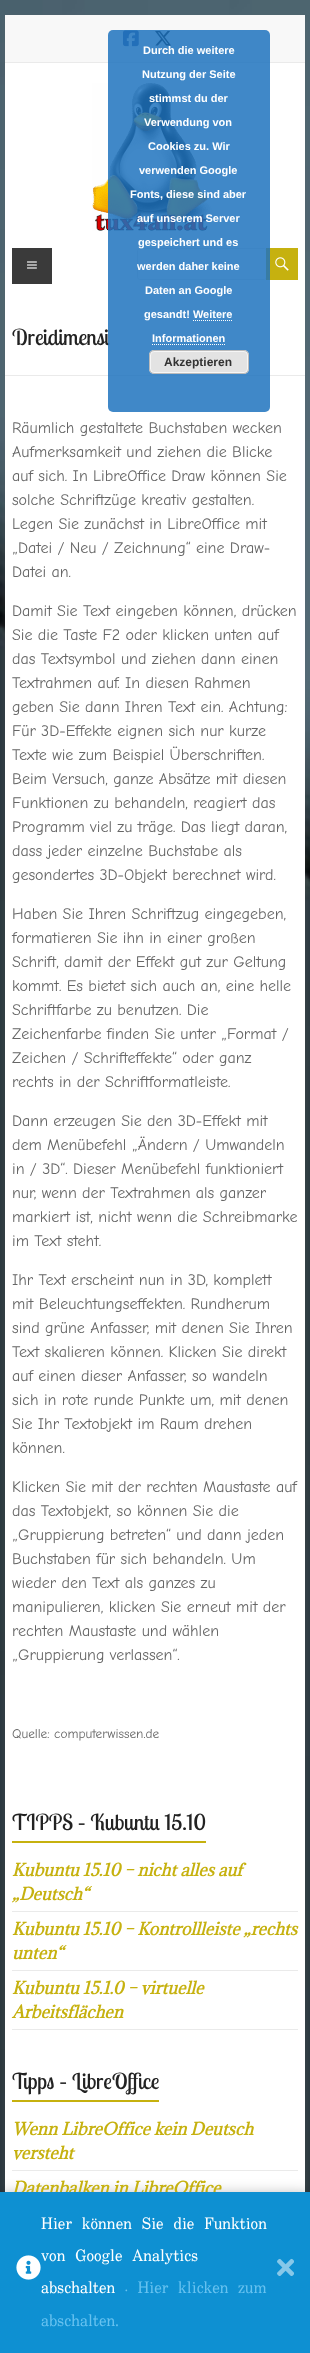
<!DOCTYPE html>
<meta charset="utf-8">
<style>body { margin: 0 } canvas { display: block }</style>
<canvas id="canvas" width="310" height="2353"></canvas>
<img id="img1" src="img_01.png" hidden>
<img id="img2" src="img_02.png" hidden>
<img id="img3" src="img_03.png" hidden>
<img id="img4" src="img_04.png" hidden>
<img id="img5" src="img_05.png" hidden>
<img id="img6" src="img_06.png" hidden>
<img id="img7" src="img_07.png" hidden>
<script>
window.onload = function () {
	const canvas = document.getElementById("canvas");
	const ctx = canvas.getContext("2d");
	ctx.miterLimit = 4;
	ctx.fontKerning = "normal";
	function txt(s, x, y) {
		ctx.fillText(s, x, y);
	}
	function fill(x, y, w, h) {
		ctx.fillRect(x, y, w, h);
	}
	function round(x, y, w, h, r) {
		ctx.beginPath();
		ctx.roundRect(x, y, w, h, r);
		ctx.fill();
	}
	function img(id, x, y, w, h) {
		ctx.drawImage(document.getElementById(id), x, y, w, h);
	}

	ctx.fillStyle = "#FFFFFF";
	fill(0, 0, 310, 2353);
	img("img1", 0, 0, 310, 2192);
	ctx.fillStyle = "rgba(100, 100, 100, 0.3)";
	ctx.filter = "blur(3px)";
	ctx.beginPath();
	ctx.rect(5, 17, 300, 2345);
	ctx.fill();
	ctx.filter = "none";
	ctx.fillStyle = "#FFFFFF";
	fill(5, 63, 300, 2129);
	ctx.fillStyle = "#F8F8F8";
	fill(5, 15, 300, 47);
	ctx.fillStyle = "#EAEAEA";
	fill(5, 62, 300, 1);
	img("img2", 123, 30, 16, 17);
	img("img3", 155, 30, 16, 16);
	img("img4", 92, 83, 122, 148);
	ctx.fillStyle = "#3A3A3A";
	fill(12, 248, 40, 36);
	ctx.beginPath();
	ctx.roundRect(137.5, 248.5, 129, 31, 2.5);
	ctx.strokeStyle = "#EAEAEA";
	ctx.stroke();
	ctx.fillStyle = "#C6B10F";
	fill(266, 248, 32, 32);
	img("img5", 275, 257, 14, 14);
	ctx.fillStyle = "#EAEAEA";
	fill(5, 375, 300, 1);
	ctx.fillStyle = "#C6B10F";
	fill(12, 1841, 194, 2);
	ctx.fillStyle = "#EAEAEA";
	fill(12, 1911, 286, 1);
	fill(12, 1970, 286, 1);
	fill(12, 2029, 286, 1);
	ctx.fillStyle = "#C6B10F";
	fill(12, 2100, 147, 2);
	ctx.fillStyle = "#EAEAEA";
	fill(12, 2170, 286, 1);
	ctx.fillStyle = "rgba(0, 0, 0, 0.4)";
	ctx.filter = "blur(7.5px)";
	ctx.beginPath();
	ctx.rect(0, 2196, 310, 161);
	ctx.fill();
	ctx.filter = "none";
	ctx.font = "21px Liberation Serif";
	ctx.fillStyle = "#FFFFFF";
	txt("≡", 26, 272);
	ctx.font = "22px Lobster Two";
	ctx.fillStyle = "#222222";
	txt("Dreidimensi", 12, 345);
	ctx.fillStyle = "rgba(30, 115, 190, 0.85)";
	round(108, 30, 162, 382, 5);
	ctx.fillStyle = "#E3E3E3";
	round(149, 350, 100, 24, 5);
	ctx.beginPath();
	ctx.roundRect(150.5, 351.5, 97, 21, 3.5);
	ctx.strokeStyle = "#F6F6F6";
	ctx.stroke();
	ctx.beginPath();
	ctx.roundRect(149.5, 350.5, 99, 23, 4.5);
	ctx.strokeStyle = "#BBBBBB";
	ctx.stroke();
	ctx.font = "bold 12px Liberation Sans";
	ctx.fillStyle = "#333333";
	txt("Akzeptieren", 164, 366);
	ctx.font = "bold 11px Liberation Sans";
	ctx.fillStyle = "#FFFFFF";
	txt("Informationen", 152, 342);
	ctx.beginPath();
	ctx.moveTo(152, 344.5);
	ctx.lineTo(225, 344.5);
	ctx.strokeStyle = "#FFFFFF";
	ctx.setLineDash([1, 1]);
	ctx.stroke();
	ctx.beginPath();
	ctx.moveTo(193, 320.5);
	ctx.lineTo(233, 320.5);
	ctx.stroke();
	txt("gesandt! Weitere", 144, 318);
	txt("Daten an Google", 145, 294);
	txt("werden daher keine", 137, 270);
	txt("gespeichert und es", 138, 246);
	txt("auf unserem Server", 137, 222);
	txt("Fonts, diese sind aber", 130, 198);
	txt("verwenden Google", 139, 174);
	txt("Cookies zu. Wir", 148, 150);
	txt("Verwendung von", 144, 126);
	txt("stimmst du der", 149, 102);
	txt("Nutzung der Seite", 142, 78);
	txt("Durch die weitere", 143, 54);
	ctx.font = "16px Comic Neue";
	ctx.fillStyle = "#666666";
	txt("Räumlich gestaltete Buchstaben wecken", 12, 433);
	txt("Aufmerksamkeit und ziehen die Blicke", 12, 457);
	txt("auf sich. In LibreOffice Draw können Sie", 12, 481);
	txt("solche Schriftzüge kreativ gestalten.", 12, 505);
	txt("Legen Sie zunächst in LibreOffice mit", 12, 529);
	txt("„Datei / Neu / Zeichnung“ eine Draw-", 12, 553);
	txt("Datei an.", 12, 577);
	txt("Damit Sie Text eingeben können, drücken", 12, 616);
	txt("Sie die Taste F2 oder klicken unten auf", 12, 640);
	txt("das Textsymbol und ziehen dann einen", 12, 664);
	txt("Textrahmen auf. In diesen Rahmen", 12, 688);
	txt("geben Sie dann Ihren Text ein. Achtung:", 12, 712);
	txt("Für 3D-Effekte eignen sich nur kurze", 12, 736);
	txt("Texte wie zum Beispiel Überschriften.", 12, 760);
	txt("Beim Versuch, ganze Absätze mit diesen", 12, 784);
	txt("Funktionen zu behandeln, reagiert das", 12, 808);
	txt("Programm viel zu träge. Das liegt daran,", 12, 832);
	txt("dass jeder einzelne Buchstabe als", 12, 856);
	txt("gesondertes 3D-Objekt berechnet wird.", 12, 880);
	txt("Haben Sie Ihren Schriftzug eingegeben,", 12, 919);
	txt("formatieren Sie ihn in einer großen", 12, 943);
	txt("Schrift, damit der Effekt gut zur Geltung", 12, 967);
	txt("kommt. Es bietet sich auch an, eine helle", 12, 991);
	txt("Schriftfarbe zu benutzen. Die", 12, 1015);
	txt("Zeichenfarbe finden Sie unter „Format /", 12, 1039);
	txt("Zeichen / Schrifteffekte“ oder ganz", 12, 1063);
	txt("rechts in der Schriftformatleiste.", 12, 1087);
	txt("Dann erzeugen Sie den 3D-Effekt mit", 12, 1126);
	txt("dem Menübefehl „Ändern / Umwandeln", 12, 1150);
	txt("in / 3D“. Dieser Menübefehl funktioniert", 12, 1174);
	txt("nur, wenn der Textrahmen als ganzer", 12, 1198);
	txt("markiert ist, nicht wenn die Schreibmarke", 12, 1222);
	txt("im Text steht.", 12, 1246);
	txt("Ihr Text erscheint nun in 3D, komplett", 12, 1285);
	txt("mit Beleuchtungseffekten. Rundherum", 12, 1309);
	txt("sind grüne Anfasser, mit denen Sie Ihren", 12, 1333);
	txt("Text skalieren können. Klicken Sie direkt", 12, 1357);
	txt("auf einen dieser Anfasser, so wandeln", 12, 1381);
	txt("sich in rote runde Punkte um, mit denen", 12, 1405);
	txt("Sie Ihr Textobjekt im Raum drehen", 12, 1429);
	txt("können.", 12, 1453);
	txt("Klicken Sie mit der rechten Maustaste auf", 12, 1492);
	txt("das Textobjekt, so können Sie die", 12, 1516);
	txt("„Gruppierung betreten“ und dann jeden", 12, 1540);
	txt("Buchstaben für sich behandeln. Um", 12, 1564);
	txt("wieder den Text als ganzes zu", 12, 1588);
	txt("manipulieren, klicken Sie erneut mit der", 12, 1612);
	txt("rechten Maustaste und wählen", 12, 1636);
	txt("„Gruppierung verlassen“.", 12, 1660);
	ctx.font = "13.25px Comic Neue";
	txt("Quelle: computerwissen.de", 12, 1738);
	ctx.font = "22px Lobster Two";
	ctx.fillStyle = "#222222";
	txt("TIPPS – Kubuntu 15.10", 12, 1830);
	ctx.font = "italic bold 16px Adamina";
	ctx.fillStyle = "#C6B10F";
	txt("Kubuntu 15.10 – nicht alles auf", 12, 1876);
	txt("„Deutsch“", 12, 1900);
	txt("Kubuntu 15.10 – Kontrollleiste „rechts", 12, 1935);
	txt("unten“", 12, 1959);
	txt("Kubuntu 15.1.0 – virtuelle", 12, 1994);
	txt("Arbeitsflächen", 12, 2018);
	ctx.font = "22px Lobster Two";
	ctx.fillStyle = "#222222";
	txt("Tipps – LibreOffice", 12, 2089);
	ctx.font = "italic bold 16px Adamina";
	ctx.fillStyle = "#C6B10F";
	txt("Wenn LibreOffice kein Deutsch", 12, 2135);
	txt("versteht", 12, 2159);
	txt("Datenbalken in LibreOffice", 12, 2194);
	ctx.fillStyle = "#0E90D2";
	fill(0, 2192, 310, 161);
	img("img6", 16, 2255, 25, 25);
	ctx.font = "16px Uchen";
	ctx.fillStyle = "#FFFFFF";
	txt("Hier können Sie die Funktion", 41, 2229);
	txt("von Google Analytics", 41, 2261);
	txt("abschalten", 41, 2293);
	ctx.fillStyle = "#67C2F0";
	txt(". Hier klicken zum", 125, 2293);
	txt("abschalten", 41, 2326);
	ctx.font = "16px Ubuntu";
	txt(".", 115, 2326);
	img("img7", 277, 2258, 17, 18);
};
</script>
